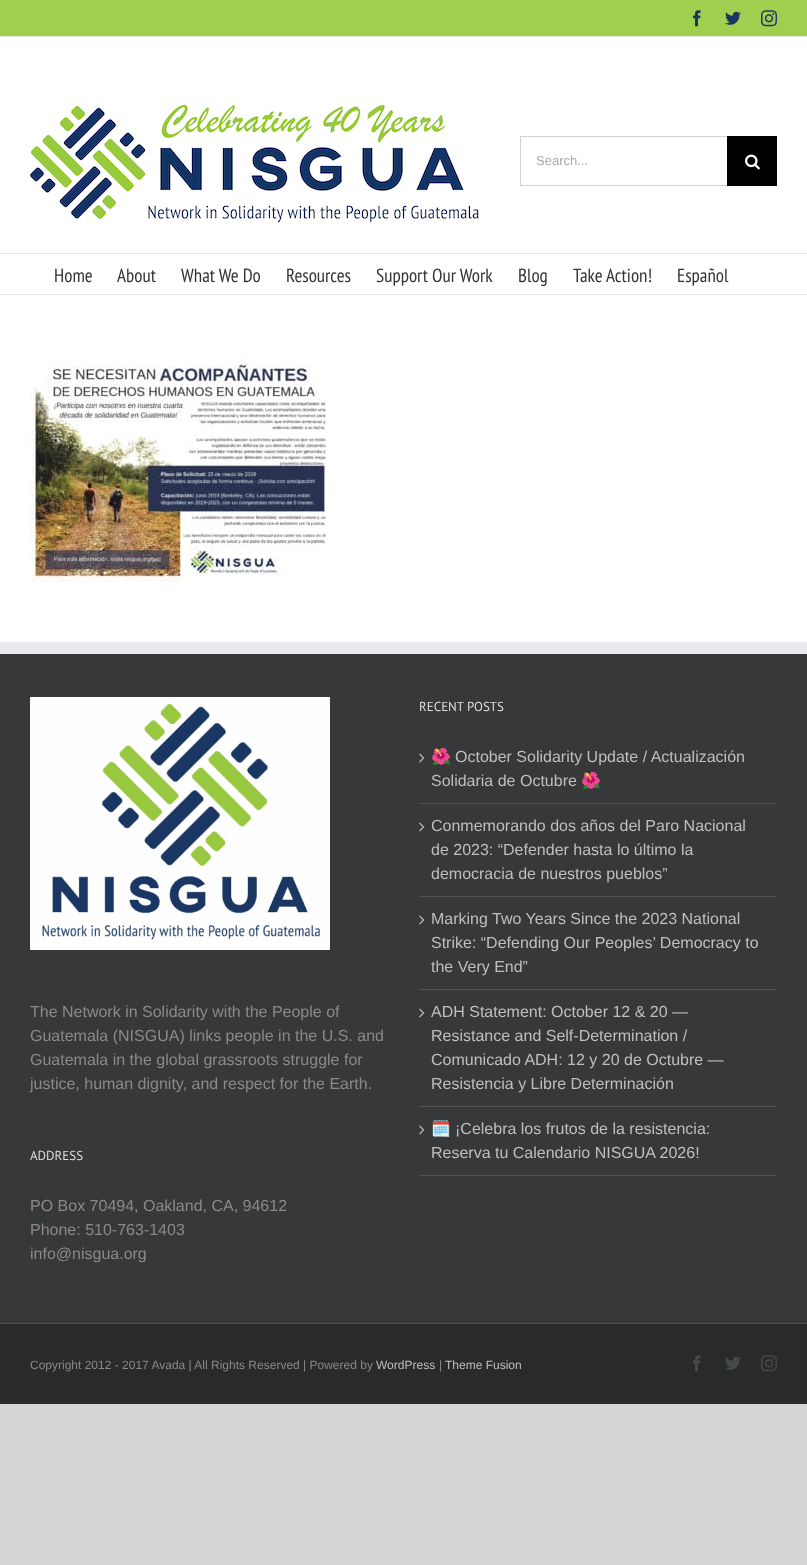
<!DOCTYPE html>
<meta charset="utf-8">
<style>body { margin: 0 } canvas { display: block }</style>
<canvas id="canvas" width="807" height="1565"></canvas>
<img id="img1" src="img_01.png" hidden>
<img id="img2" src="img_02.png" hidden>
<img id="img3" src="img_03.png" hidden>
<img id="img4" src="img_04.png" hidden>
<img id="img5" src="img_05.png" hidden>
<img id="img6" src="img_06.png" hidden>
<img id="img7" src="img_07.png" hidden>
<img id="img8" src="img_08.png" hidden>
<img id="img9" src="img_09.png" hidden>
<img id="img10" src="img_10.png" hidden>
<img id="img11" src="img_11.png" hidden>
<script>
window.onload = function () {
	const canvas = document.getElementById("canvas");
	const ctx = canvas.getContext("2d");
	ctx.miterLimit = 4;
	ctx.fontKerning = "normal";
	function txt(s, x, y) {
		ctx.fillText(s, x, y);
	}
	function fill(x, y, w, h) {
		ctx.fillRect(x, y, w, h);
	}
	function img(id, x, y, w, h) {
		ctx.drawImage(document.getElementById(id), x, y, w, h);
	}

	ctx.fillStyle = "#D7D6D6";
	fill(0, 0, 807, 1565);
	ctx.fillStyle = "#A0CE4E";
	fill(0, 0, 807, 36);
	ctx.fillStyle = "#E5E5E5";
	fill(0, 36, 807, 1);
	img("img1", 693, 10, 8, 17);
	img("img2", 725, 11, 16, 14);
	img("img3", 761, 10, 16, 17);
	ctx.fillStyle = "#FFFFFF";
	fill(0, 37, 807, 216);
	ctx.fillStyle = "#E5E5E5";
	fill(0, 253, 807, 1);
	img("img4", 30, 104, 449, 119);
	ctx.fillStyle = "#D2D2D2";
	fill(520, 136, 207, 1);
	fill(520, 185, 207, 1);
	fill(520, 136, 1, 50);
	ctx.fillStyle = "#000000";
	fill(727, 136, 50, 50);
	img("img5", 745, 154, 15, 16);
	ctx.fillStyle = "#FFFFFF";
	fill(0, 254, 807, 40);
	ctx.fillStyle = "#E5E5E5";
	fill(0, 294, 807, 1);
	ctx.fillStyle = "#FFFFFF";
	fill(0, 295, 807, 347);
	img("img6", 30, 358, 298, 224);
	ctx.fillStyle = "#363839";
	fill(0, 654, 807, 669);
	ctx.fillStyle = "#E9EAEE";
	fill(0, 642, 807, 12);
	img("img7", 30, 697, 300, 253);
	ctx.fillStyle = "#505152";
	fill(419, 803, 358, 1);
	img("img8", 419, 753, 6, 10);
	fill(419, 896, 358, 1);
	img("img8", 419, 822, 6, 10);
	fill(419, 989, 358, 1);
	img("img8", 419, 915, 6, 10);
	fill(419, 1106, 358, 1);
	img("img8", 419, 1008, 6, 10);
	fill(419, 1175, 358, 1);
	img("img8", 419, 1125, 6, 10);
	ctx.fillStyle = "#282A2B";
	fill(0, 1324, 807, 80);
	ctx.fillStyle = "#4B4C4D";
	fill(0, 1323, 807, 1);
	img("img9", 693, 1355, 8, 17);
	img("img10", 725, 1356, 16, 14);
	img("img11", 761, 1355, 16, 17);
	ctx.font = "13px Liberation Sans";
	ctx.fillStyle = "#AAA9A9";
	txt("Search...", 536, 165);
	ctx.font = "19px PT Sans Narrow";
	ctx.fillStyle = "#333333";
	txt("Home", 54, 282);
	txt("About", 117, 282);
	txt("What We Do", 181, 282);
	txt("Resources", 286, 282);
	txt("Support Our Work", 376, 282);
	txt("Blog", 518, 282);
	txt("Take Action!", 573, 282);
	txt("Español", 677, 282);
	ctx.font = "16px Liberation Sans";
	ctx.fillStyle = "#8C8989";
	txt("The Network in Solidarity with the People of", 30, 1017);
	txt("Guatemala (NISGUA) links people in the U.S. and", 30, 1041);
	txt("Guatemala in the global grassroots struggle for", 30, 1065);
	txt("justice, human dignity, and respect for the Earth.", 30, 1089);
	ctx.font = "13px PT Sans";
	ctx.fillStyle = "#DDDDDD";
	txt("ADDRESS", 30, 1160);
	ctx.font = "16px Liberation Sans";
	ctx.fillStyle = "#8C8989";
	txt("PO Box 70494, Oakland, CA, 94612", 30, 1211);
	txt("Phone: 510-763-1403", 30, 1235);
	txt("info@nisgua.org", 30, 1259);
	ctx.font = "13px PT Sans";
	ctx.fillStyle = "#DDDDDD";
	txt("RECENT POSTS", 419, 711);
	ctx.font = "16px Noto Color Emoji";
	ctx.fillStyle = "#BFBFBF";
	txt("🌺", 431, 762);
	ctx.font = "16px Liberation Sans";
	txt("October Solidarity Update / Actualización", 455, 762);
	txt("Solidaria de Octubre", 431, 786);
	ctx.font = "16px Noto Color Emoji";
	txt("🌺", 581, 786);
	ctx.font = "16px Liberation Sans";
	txt("Conmemorando dos años del Paro Nacional", 431, 831);
	txt("de 2023: “Defender hasta lo último la", 431, 855);
	txt("democracia de nuestros pueblos”", 431, 879);
	txt("Marking Two Years Since the 2023 National", 431, 924);
	txt("Strike: “Defending Our Peoples’ Democracy to", 431, 948);
	txt("the Very End”", 431, 972);
	txt("ADH Statement: October 12 & 20 —", 431, 1017);
	txt("Resistance and Self-Determination /", 431, 1041);
	txt("Comunicado ADH: 12 y 20 de Octubre —", 431, 1065);
	txt("Resistencia y Libre Determinación", 431, 1089);
	ctx.font = "16px Noto Color Emoji";
	txt("🗓️", 431, 1134);
	ctx.font = "16px Liberation Sans";
	txt("¡Celebra los frutos de la resistencia:", 455, 1134);
	txt("Reserva tu Calendario NISGUA 2026!", 431, 1158);
	ctx.font = "12px Liberation Sans";
	ctx.fillStyle = "#8C8989";
	txt("Copyright 2012 - 2017 Avada | All Rights Reserved | Powered by", 30, 1369);
	ctx.fillStyle = "#BFBFBF";
	txt("WordPress", 376, 1369);
	ctx.fillStyle = "#8C8989";
	txt("|", 439, 1369);
	ctx.fillStyle = "#BFBFBF";
	txt("Theme Fusion", 445, 1369);
};
</script>
